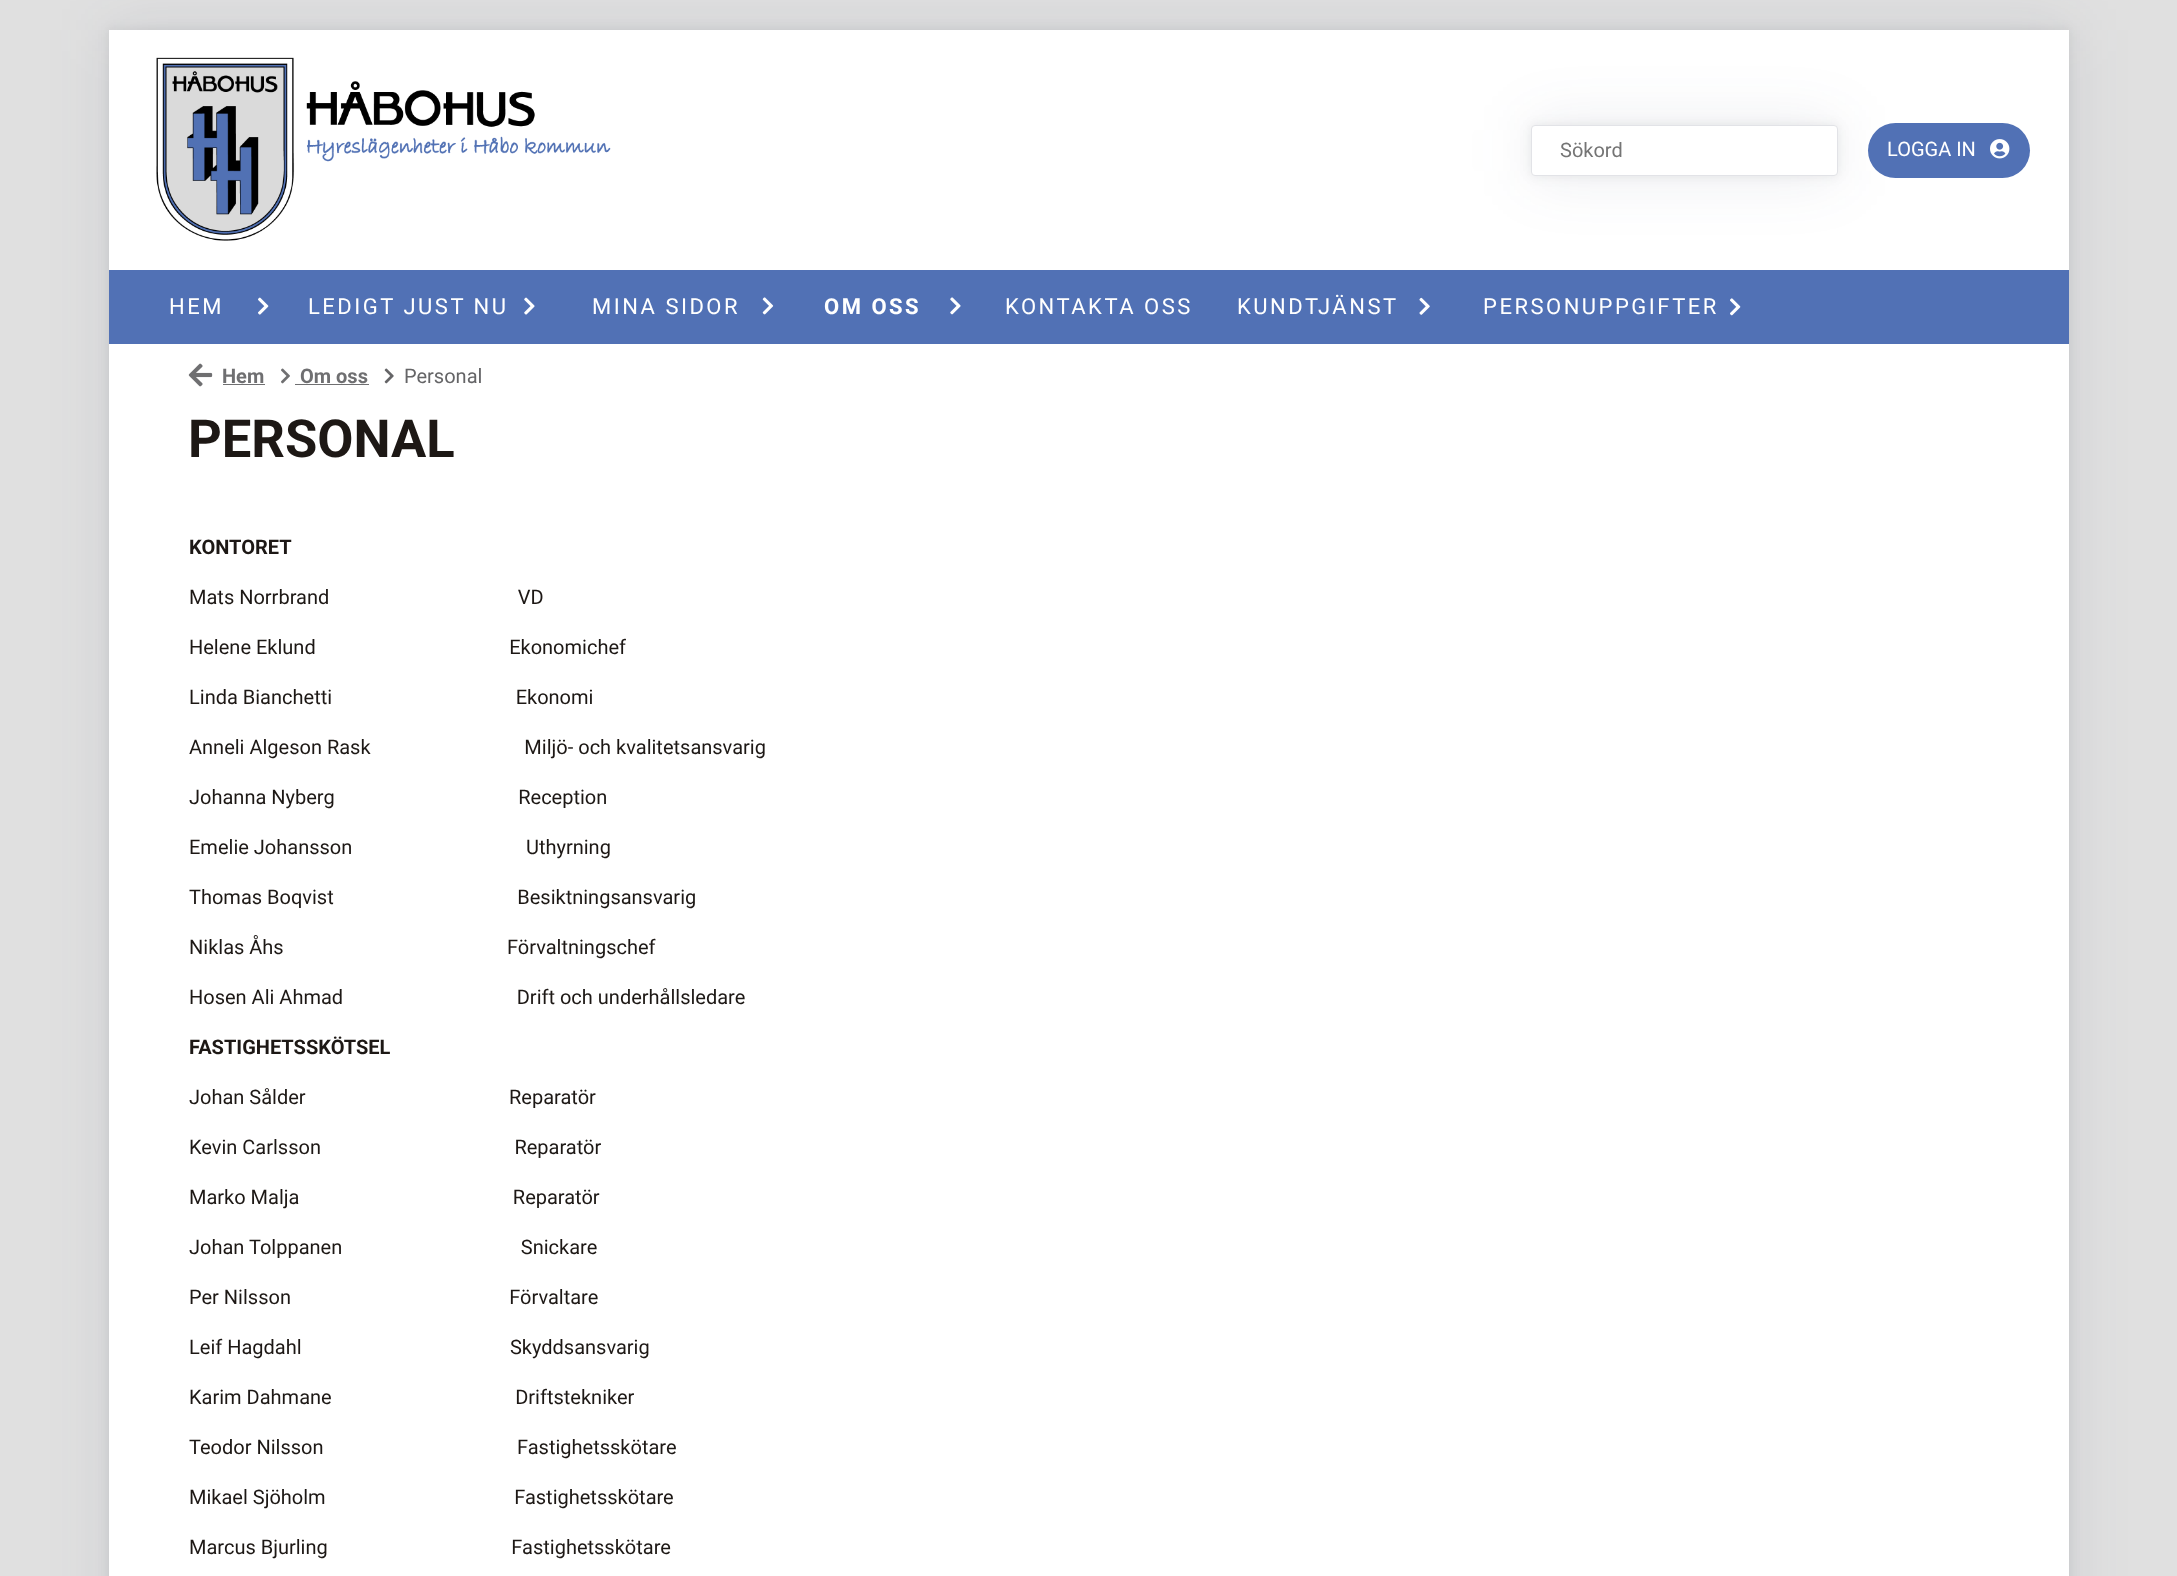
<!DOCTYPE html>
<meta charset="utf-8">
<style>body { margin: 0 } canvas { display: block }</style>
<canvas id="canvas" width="2177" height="1576"></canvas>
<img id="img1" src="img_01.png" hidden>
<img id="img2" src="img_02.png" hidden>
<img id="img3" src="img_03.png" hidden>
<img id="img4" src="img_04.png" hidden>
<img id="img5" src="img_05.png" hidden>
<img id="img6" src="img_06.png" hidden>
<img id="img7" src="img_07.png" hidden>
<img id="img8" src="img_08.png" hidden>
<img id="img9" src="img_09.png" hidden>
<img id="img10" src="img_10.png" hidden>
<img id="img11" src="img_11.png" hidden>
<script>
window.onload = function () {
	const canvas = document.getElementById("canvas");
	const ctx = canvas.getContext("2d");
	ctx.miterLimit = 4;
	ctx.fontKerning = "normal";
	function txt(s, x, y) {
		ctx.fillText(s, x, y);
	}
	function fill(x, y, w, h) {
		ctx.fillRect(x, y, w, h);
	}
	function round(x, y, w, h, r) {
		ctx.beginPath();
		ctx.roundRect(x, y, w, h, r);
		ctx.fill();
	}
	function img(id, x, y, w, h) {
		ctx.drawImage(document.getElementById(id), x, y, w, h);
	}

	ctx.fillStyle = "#E0E0E0";
	fill(0, 0, 2177, 1576);
	ctx.fillStyle = "rgba(45, 58, 96, 0.1)";
	ctx.filter = "blur(31px)";
	ctx.beginPath();
	ctx.rect(109, 30, 1960, 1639);
	ctx.fill();
	ctx.filter = "none";
	ctx.fillStyle = "rgba(0, 0, 0, 0.08)";
	ctx.filter = "blur(6px)";
	ctx.beginPath();
	ctx.rect(109, 30, 1960, 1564);
	ctx.fill();
	ctx.filter = "none";
	ctx.fillStyle = "#FFFFFF";
	fill(109, 30, 1960, 1546);
	img("img1", 156, 57, 455, 184);
	ctx.fillStyle = "rgba(45, 58, 96, 0.1)";
	ctx.filter = "blur(31px)";
	ctx.beginPath();
	ctx.roundRect(1531, 125, 307, 51, 4);
	ctx.fill();
	ctx.filter = "none";
	ctx.fillStyle = "rgba(0, 0, 0, 0.08)";
	ctx.filter = "blur(6px)";
	ctx.beginPath();
	ctx.roundRect(1531, 125, 307, 51, 4);
	ctx.fill();
	ctx.filter = "none";
	ctx.fillStyle = "#FFFFFF";
	ctx.beginPath();
	ctx.roundRect(1531.5, 125.5, 306, 50, 3.5);
	ctx.fill();
	ctx.strokeStyle = "#E2E3E7";
	ctx.stroke();
	ctx.fillStyle = "#5171B5";
	round(1868, 123, 162, 55, 27.5);
	img("img2", 1990, 139, 20, 20);
	fill(109, 270, 1960, 74);
	img("img3", 258, 297, 11, 18);
	img("img4", 524, 297, 11, 18);
	img("img5", 762, 297, 12, 18);
	img("img6", 950, 297, 11, 18);
	img("img7", 1419, 297, 11, 18);
	img("img8", 1730, 298, 11, 18);
	img("img9", 188, 363, 25, 24);
	ctx.fillStyle = "#6F6F71";
	fill(223, 384, 42, 1);
	img("img10", 281, 368, 9, 16);
	fill(295, 384, 74, 1);
	img("img11", 384, 368, 10, 16);
	ctx.font = "20px Roboto";
	ctx.fillStyle = "#757575";
	txt("Sökord", 1560, 157);
	ctx.fillStyle = "#FFFFFF";
	txt("LOGGA IN", 1887, 156);
	ctx.letterSpacing = "2.5px";
	ctx.font = "22px Roboto";
	txt("HEM", 169, 314);
	txt("LEDIGT JUST NU", 308, 314);
	txt("MINA SIDOR", 592, 314);
	ctx.font = "bold 22px Roboto";
	txt("OM OSS", 824, 314);
	ctx.font = "22px Roboto";
	txt("KONTAKTA OSS", 1005, 314);
	txt("KUNDTJÄNST", 1237, 314);
	txt("PERSONUPPGIFTER", 1483, 314);
	ctx.letterSpacing = "0px";
	ctx.font = "bold 20px Roboto";
	ctx.fillStyle = "#6F6F71";
	txt("Hem", 222, 383);
	txt("Om oss", 300, 383);
	ctx.font = "20px Roboto";
	ctx.fillStyle = "#656567";
	txt("Personal", 404, 383);
	ctx.font = "bold 52.5px Roboto";
	ctx.fillStyle = "#1D1815";
	txt("PERSONAL", 188, 457);
	ctx.font = "bold 20px Roboto";
	txt("KONTORET", 189, 554);
	ctx.font = "20px Roboto";
	txt("Mats Norrbrand                                      VD", 189, 604);
	txt("Helene Eklund                                       Ekonomichef", 189, 654);
	txt("Linda Bianchetti                                     Ekonomi", 189, 704);
	txt("Anneli Algeson Rask                               Miljö- och kvalitetsansvarig", 189, 754);
	txt("Johanna Nyberg                                     Reception", 189, 804);
	txt("Emelie Johansson                                   Uthyrning", 189, 854);
	txt("Thomas Boqvist                                     Besiktningsansvarig", 189, 904);
	txt("Niklas Åhs                                             Förvaltningschef", 189, 954);
	txt("Hosen Ali Ahmad                                   Drift och underhållsledare", 189, 1004);
	ctx.font = "bold 20px Roboto";
	txt("FASTIGHETSSKÖTSEL", 189, 1054);
	ctx.font = "20px Roboto";
	txt("Johan Sålder                                         Reparatör", 189, 1104);
	txt("Kevin Carlsson                                       Reparatör", 189, 1154);
	txt("Marko Malja                                           Reparatör", 189, 1204);
	txt("Johan Tolppanen                                    Snickare", 189, 1254);
	txt("Per Nilsson                                            Förvaltare", 189, 1304);
	txt("Leif Hagdahl                                          Skyddsansvarig", 189, 1354);
	txt("Karim Dahmane                                     Driftstekniker", 189, 1404);
	txt("Teodor Nilsson                                       Fastighetsskötare", 189, 1454);
	txt("Mikael Sjöholm                                      Fastighetsskötare", 189, 1504);
	txt("Marcus Bjurling                                     Fastighetsskötare", 189, 1554);
};
</script>
